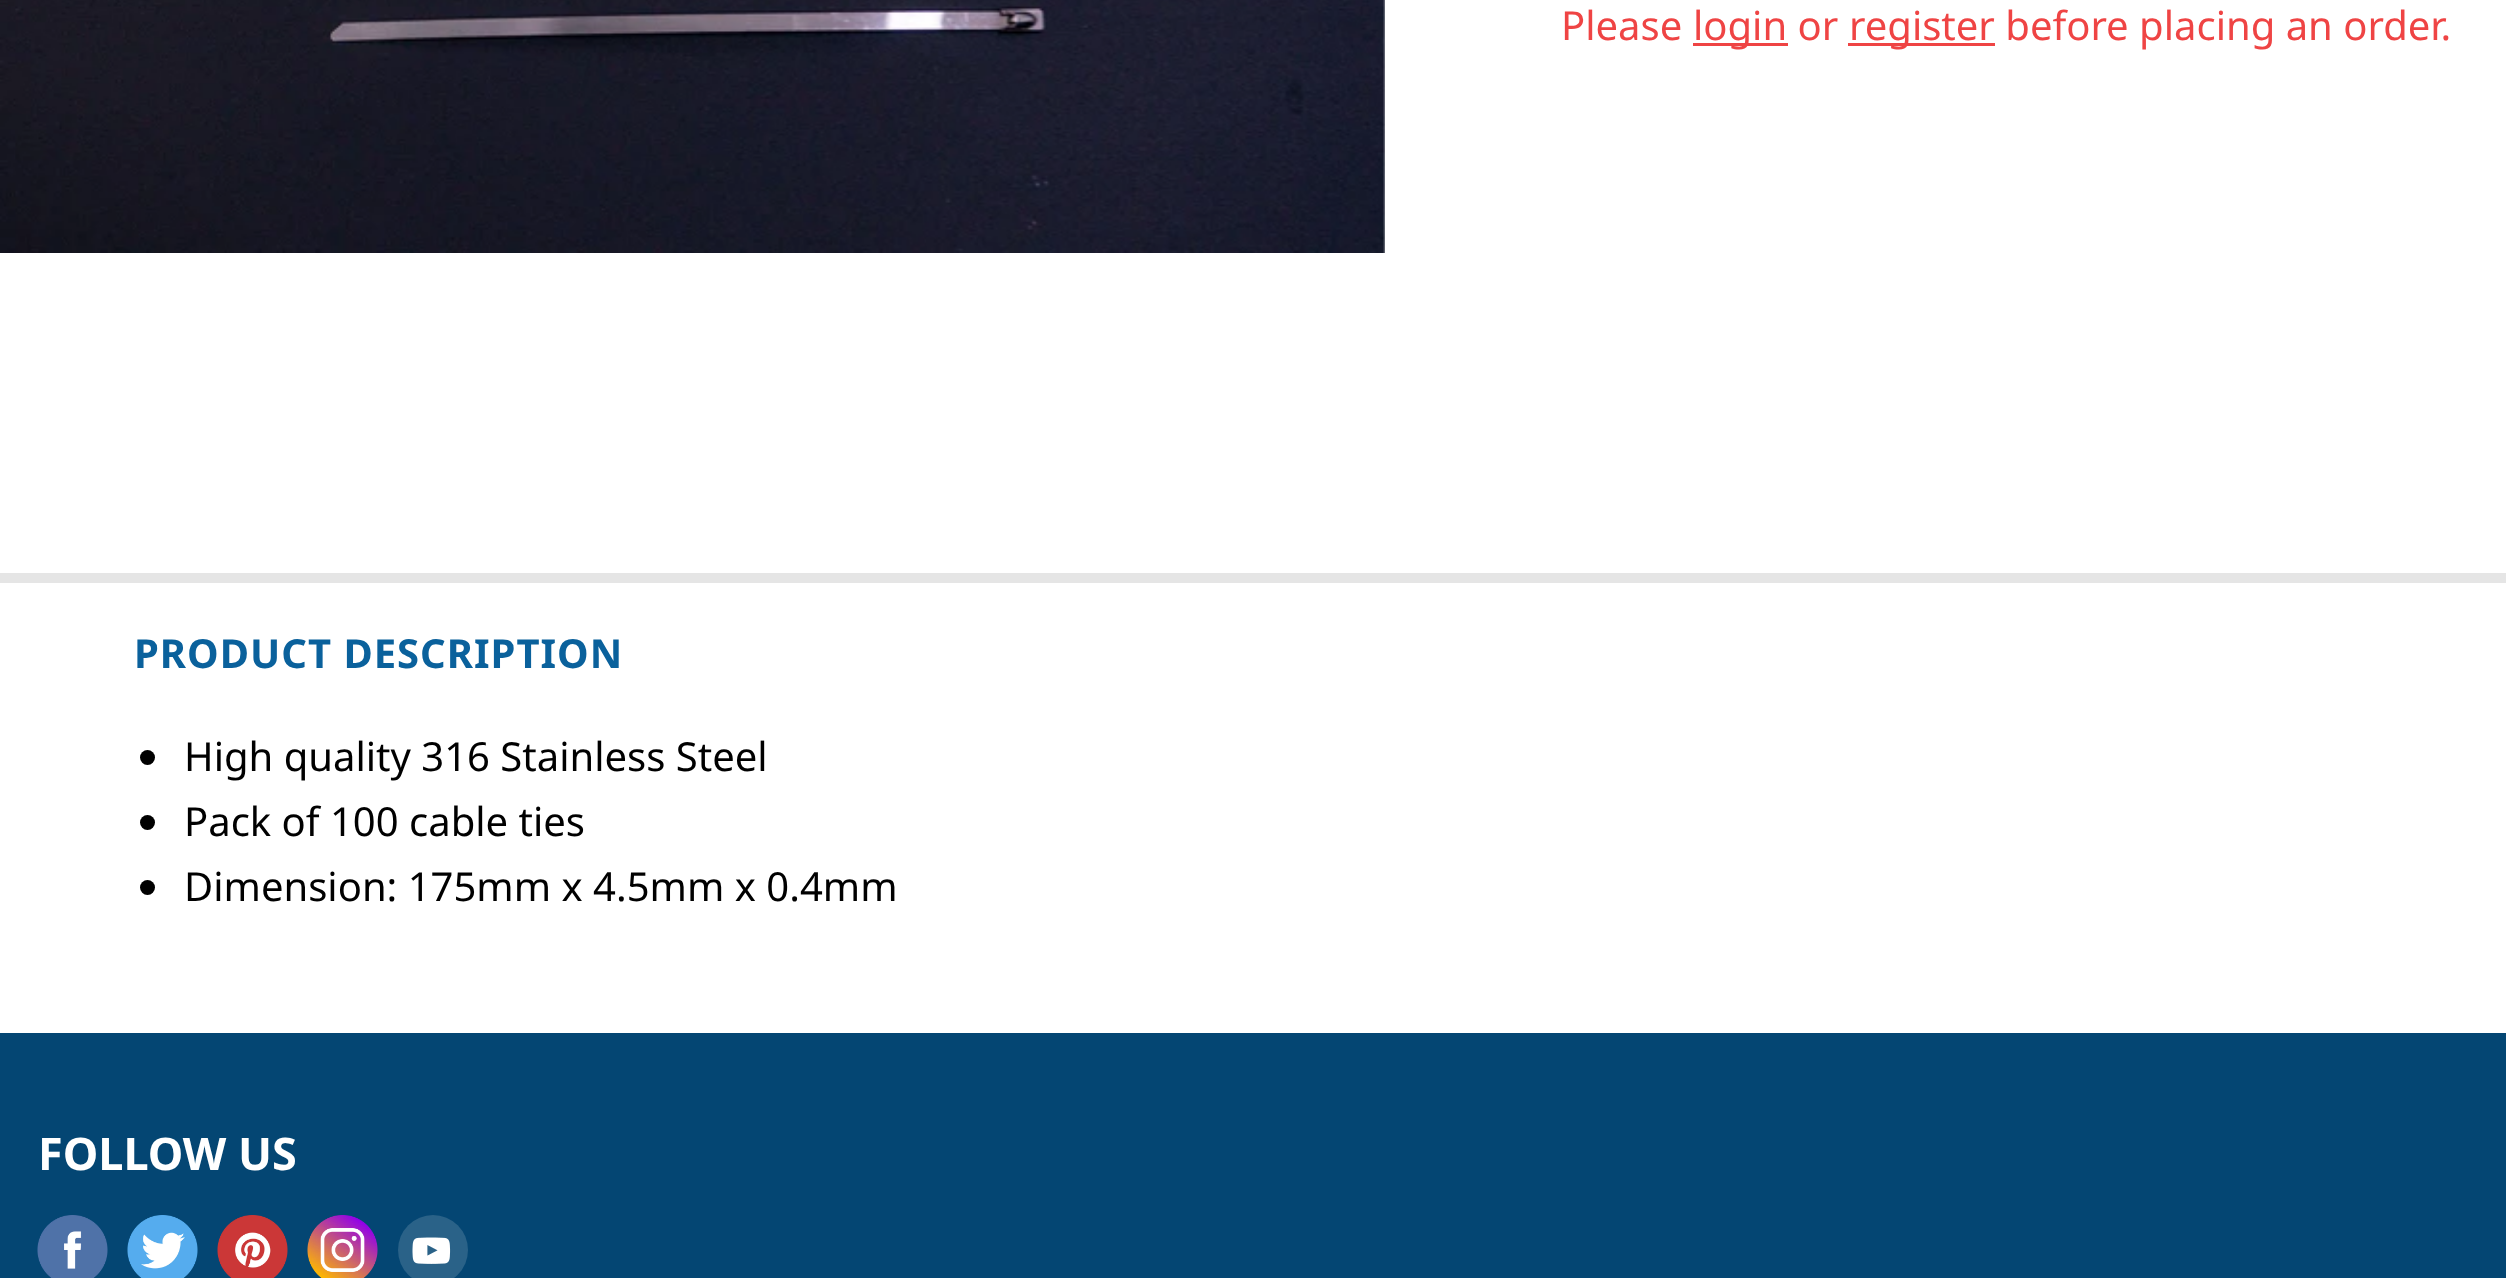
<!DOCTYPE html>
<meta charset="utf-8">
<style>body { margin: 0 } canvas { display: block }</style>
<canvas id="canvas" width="2506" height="1278"></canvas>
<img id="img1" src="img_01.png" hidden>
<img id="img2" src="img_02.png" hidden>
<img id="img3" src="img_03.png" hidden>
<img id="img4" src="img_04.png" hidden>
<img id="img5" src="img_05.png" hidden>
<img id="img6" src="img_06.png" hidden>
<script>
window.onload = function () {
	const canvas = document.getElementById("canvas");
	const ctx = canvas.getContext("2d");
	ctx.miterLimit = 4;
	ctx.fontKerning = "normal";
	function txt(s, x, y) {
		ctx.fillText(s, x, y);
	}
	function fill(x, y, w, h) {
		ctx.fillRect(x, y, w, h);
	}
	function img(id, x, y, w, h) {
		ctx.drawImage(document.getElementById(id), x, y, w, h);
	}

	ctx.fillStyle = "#FFFFFF";
	fill(0, 0, 2506, 1278);
	img("img1", 0, 0, 1385, 253);
	ctx.fillStyle = "#EF4444";
	fill(1693, 43, 95, 3);
	fill(1848, 43, 147, 3);
	ctx.fillStyle = "#E5E5E5";
	fill(0, 573, 2506, 10);
	ctx.fillStyle = "#000000";
	ctx.beginPath();
	ctx.arc(147.5, 757.5, 7.5, 0, Math.PI * 2);
	ctx.fill();
	ctx.beginPath();
	ctx.arc(147.5, 822.5, 7.5, 0, Math.PI * 2);
	ctx.fill();
	ctx.beginPath();
	ctx.arc(147.5, 887.5, 7.5, 0, Math.PI * 2);
	ctx.fill();
	ctx.fillStyle = "#044673";
	fill(0, 1033, 2506, 245);
	img("img2", 37, 1215, 71, 63);
	img("img3", 127, 1215, 71, 63);
	img("img4", 217, 1215, 71, 63);
	img("img5", 307, 1215, 71, 63);
	ctx.fillStyle = "#2A6288";
	ctx.beginPath();
	ctx.arc(433, 1250, 35, 0, Math.PI * 2);
	ctx.fill();
	img("img6", 412, 1237, 39, 27);
	ctx.font = "40px Noto Sans";
	ctx.fillStyle = "#EF4444";
	txt("Please", 1561, 40);
	txt("login or", 1693, 40);
	txt("register before placing an order.", 1849, 40);
	ctx.letterSpacing = "1px";
	ctx.font = "bold 40px Noto Sans";
	ctx.fillStyle = "#0A619C";
	txt("PRODUCT DESCRIPTION", 134, 668);
	ctx.letterSpacing = "0px";
	ctx.font = "40px Noto Sans";
	ctx.fillStyle = "#000000";
	txt("High quality 316 Stainless Steel", 184, 771);
	txt("Pack of 100 cable ties", 184, 836);
	txt("Dimension: 175mm x 4.5mm x 0.4mm", 184, 901);
	ctx.font = "bold 45px Noto Sans";
	ctx.fillStyle = "#FFFFFF";
	txt("FOLLOW US", 38, 1170);
};
</script>
